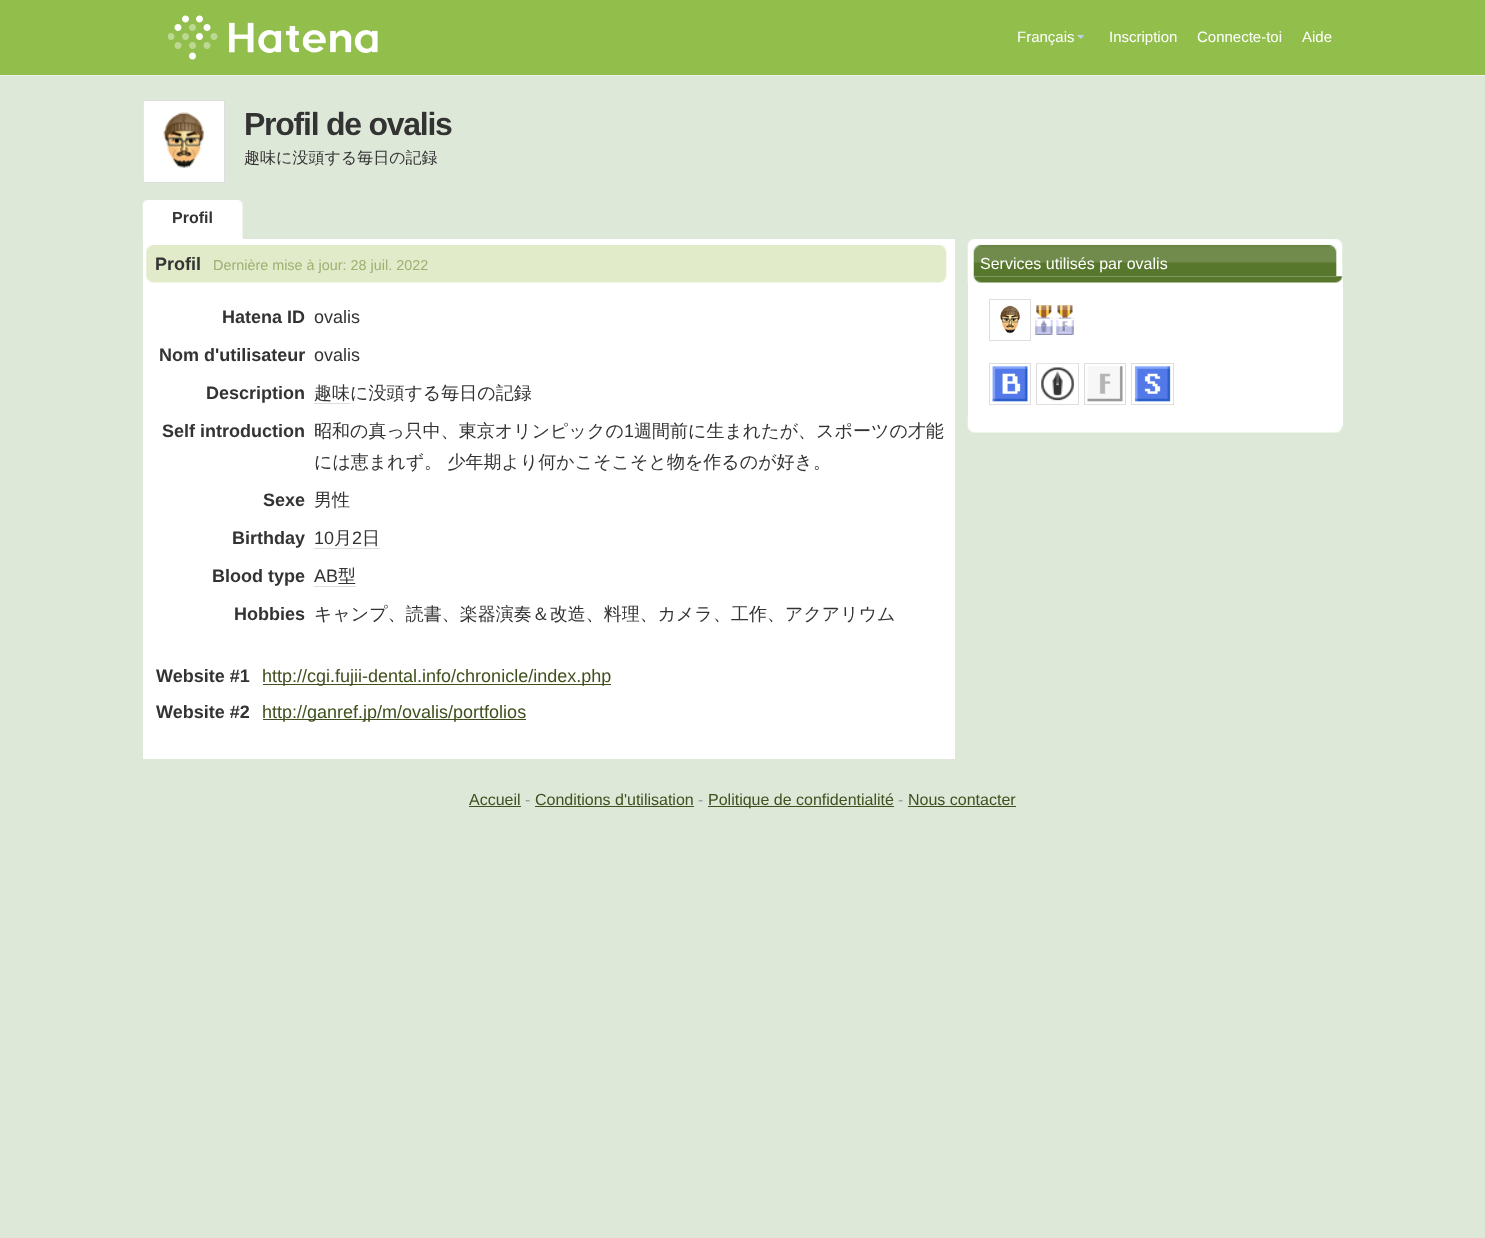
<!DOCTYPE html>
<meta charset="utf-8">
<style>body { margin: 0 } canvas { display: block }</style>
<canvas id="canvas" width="1485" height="1238"></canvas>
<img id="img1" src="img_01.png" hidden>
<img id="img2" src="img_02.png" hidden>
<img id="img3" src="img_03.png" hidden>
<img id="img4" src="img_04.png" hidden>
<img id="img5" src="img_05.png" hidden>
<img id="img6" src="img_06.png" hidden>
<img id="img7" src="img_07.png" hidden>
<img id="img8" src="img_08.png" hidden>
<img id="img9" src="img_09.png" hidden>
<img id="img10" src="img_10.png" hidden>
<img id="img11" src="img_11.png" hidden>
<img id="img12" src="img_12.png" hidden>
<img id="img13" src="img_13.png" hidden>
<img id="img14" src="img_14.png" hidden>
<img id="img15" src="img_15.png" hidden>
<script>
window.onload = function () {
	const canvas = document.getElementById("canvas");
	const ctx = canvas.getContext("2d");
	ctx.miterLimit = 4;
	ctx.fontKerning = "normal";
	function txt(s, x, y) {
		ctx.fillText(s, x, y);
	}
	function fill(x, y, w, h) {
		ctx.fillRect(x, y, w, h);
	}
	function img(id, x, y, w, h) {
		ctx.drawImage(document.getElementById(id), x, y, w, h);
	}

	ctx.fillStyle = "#DEE8D8";
	fill(0, 0, 1485, 1238);
	ctx.fillStyle = "#92BF4C";
	fill(0, 0, 1485, 75);
	ctx.fillStyle = "#F0F0F0";
	fill(0, 75, 1485, 1);
	img("img1", 168, 15, 210, 45);
	img("img2", 1077, 34, 7, 5);
	ctx.fillStyle = "#FFFFFF";
	ctx.beginPath();
	ctx.rect(143.5, 100.5, 81, 82);
	ctx.fill();
	ctx.strokeStyle = "#DEDEDE";
	ctx.stroke();
	img("img3", 143, 101, 61, 80);
	img("img4", 142, 200, 101, 39);
	fill(143, 238, 100, 1);
	fill(143, 239, 812, 520);
	img("img5", 146, 245, 801, 38);
	ctx.fillStyle = "#DEDEDE";
	fill(314, 403, 36, 1);
	fill(314, 548, 66, 1);
	fill(314, 586, 42, 1);
	ctx.fillStyle = "#40501E";
	fill(263, 684, 348, 1);
	fill(263, 719, 263, 1);
	img("img6", 967, 417, 376, 16);
	img("img7", 967, 239, 376, 38);
	ctx.fillStyle = "#FFFFFF";
	fill(968, 276, 375, 150);
	img("img8", 967, 276, 376, 7);
	ctx.strokeRect(989.5, 299.5, 41, 41);
	img("img9", 1000, 305, 20, 29);
	img("img10", 1035, 305, 18, 30);
	img("img11", 1056, 305, 18, 30);
	ctx.strokeRect(989.5, 363.5, 41, 41);
	img("img12", 992, 366, 36, 36);
	ctx.strokeRect(1036.5, 363.5, 42, 41);
	img("img13", 1037, 363, 41, 38);
	ctx.strokeRect(1084.5, 363.5, 41, 41);
	img("img14", 1087, 366, 36, 36);
	ctx.strokeRect(1131.5, 363.5, 42, 41);
	img("img15", 1134, 366, 37, 36);
	ctx.fillStyle = "#40501E";
	fill(469, 806, 52, 1);
	fill(535, 806, 159, 1);
	fill(708, 806, 186, 1);
	fill(908, 806, 108, 1);
	ctx.font = "15px Liberation Sans";
	ctx.fillStyle = "#FFFFFF";
	txt("Français", 1017, 42);
	txt("Inscription", 1109, 42);
	txt("Connecte-toi", 1197, 42);
	txt("Aide", 1302, 42);
	ctx.letterSpacing = "-1.25px";
	ctx.font = "bold 32px Liberation Sans";
	ctx.fillStyle = "#333333";
	txt("Profil de ovalis", 244, 135);
	ctx.letterSpacing = "0px";
	ctx.font = "500 16px WenQuanYi Zen Hei";
	txt("趣味に没頭する毎日の記録", 244, 163);
	ctx.font = "bold 16px Liberation Sans";
	txt("Profil", 172, 223);
	ctx.font = "bold 18px Liberation Sans";
	txt("Profil", 155, 270);
	ctx.font = "14.4px Liberation Sans";
	ctx.fillStyle = "#9EB073";
	txt("Dernière mise à jour: 28 juil. 2022", 213, 270);
	ctx.font = "bold 18px Liberation Sans";
	ctx.fillStyle = "#333333";
	txt("Hatena ID", 222, 323);
	ctx.font = "18px Liberation Sans";
	txt("ovalis", 314, 323);
	ctx.font = "bold 18px Liberation Sans";
	txt("Nom d'utilisateur", 159, 361);
	ctx.font = "18px Liberation Sans";
	txt("ovalis", 314, 361);
	ctx.font = "bold 18px Liberation Sans";
	txt("Description", 206, 399);
	ctx.font = "500 18px WenQuanYi Zen Hei";
	txt("趣味に没頭する毎日の記録", 314, 399);
	ctx.font = "bold 18px Liberation Sans";
	txt("Self introduction", 162, 437);
	ctx.font = "500 18px WenQuanYi Zen Hei";
	txt("昭和の真っ只中、東京オリンピックの", 314, 437);
	ctx.font = "18px Liberation Sans";
	txt("1", 624, 437);
	ctx.font = "500 18px WenQuanYi Zen Hei";
	txt("週間前に生まれたが、スポーツの才能", 634, 437);
	txt("には恵まれず。 少年期より何かこそこそと物を作るのが好き。", 314, 468);
	ctx.font = "bold 18px Liberation Sans";
	txt("Sexe", 263, 506);
	ctx.font = "500 18px WenQuanYi Zen Hei";
	txt("男性", 314, 506);
	ctx.font = "bold 18px Liberation Sans";
	txt("Birthday", 232, 544);
	ctx.font = "18px Liberation Sans";
	txt("10", 314, 544);
	ctx.font = "500 18px WenQuanYi Zen Hei";
	txt("月", 334, 544);
	ctx.font = "18px Liberation Sans";
	txt("2", 352, 544);
	ctx.font = "500 18px WenQuanYi Zen Hei";
	txt("日", 362, 544);
	ctx.font = "bold 18px Liberation Sans";
	txt("Blood type", 212, 582);
	ctx.font = "18px Liberation Sans";
	txt("AB", 314, 582);
	ctx.font = "500 18px WenQuanYi Zen Hei";
	txt("型", 338, 582);
	ctx.font = "bold 18px Liberation Sans";
	txt("Hobbies", 234, 620);
	ctx.font = "500 18px WenQuanYi Zen Hei";
	txt("キャンプ、読書、楽器演奏＆改造、料理、カメラ、工作、アクアリウム", 314, 620);
	ctx.font = "bold 18px Liberation Sans";
	txt("Website #1", 156, 682);
	ctx.font = "18px Liberation Sans";
	ctx.fillStyle = "#40501E";
	txt("http://cgi.fujii-dental.info/chronicle/index.php", 262, 682);
	ctx.font = "bold 18px Liberation Sans";
	ctx.fillStyle = "#333333";
	txt("Website #2", 156, 718);
	ctx.font = "18px Liberation Sans";
	ctx.fillStyle = "#40501E";
	txt("http://ganref.jp/m/ovalis/portfolios", 262, 718);
	ctx.font = "16px Liberation Sans";
	ctx.fillStyle = "#FFFFFF";
	txt("Services utilisés par ovalis", 980, 269);
	ctx.fillStyle = "#40501E";
	txt("Accueil", 469, 805);
	ctx.fillStyle = "#999999";
	txt("-", 525, 805);
	ctx.fillStyle = "#40501E";
	txt("Conditions d'utilisation", 535, 805);
	ctx.fillStyle = "#999999";
	txt("-", 698, 805);
	ctx.fillStyle = "#40501E";
	txt("Politique de confidentialité", 708, 805);
	ctx.fillStyle = "#999999";
	txt("-", 898, 805);
	ctx.fillStyle = "#40501E";
	txt("Nous contacter", 908, 805);
};
</script>
